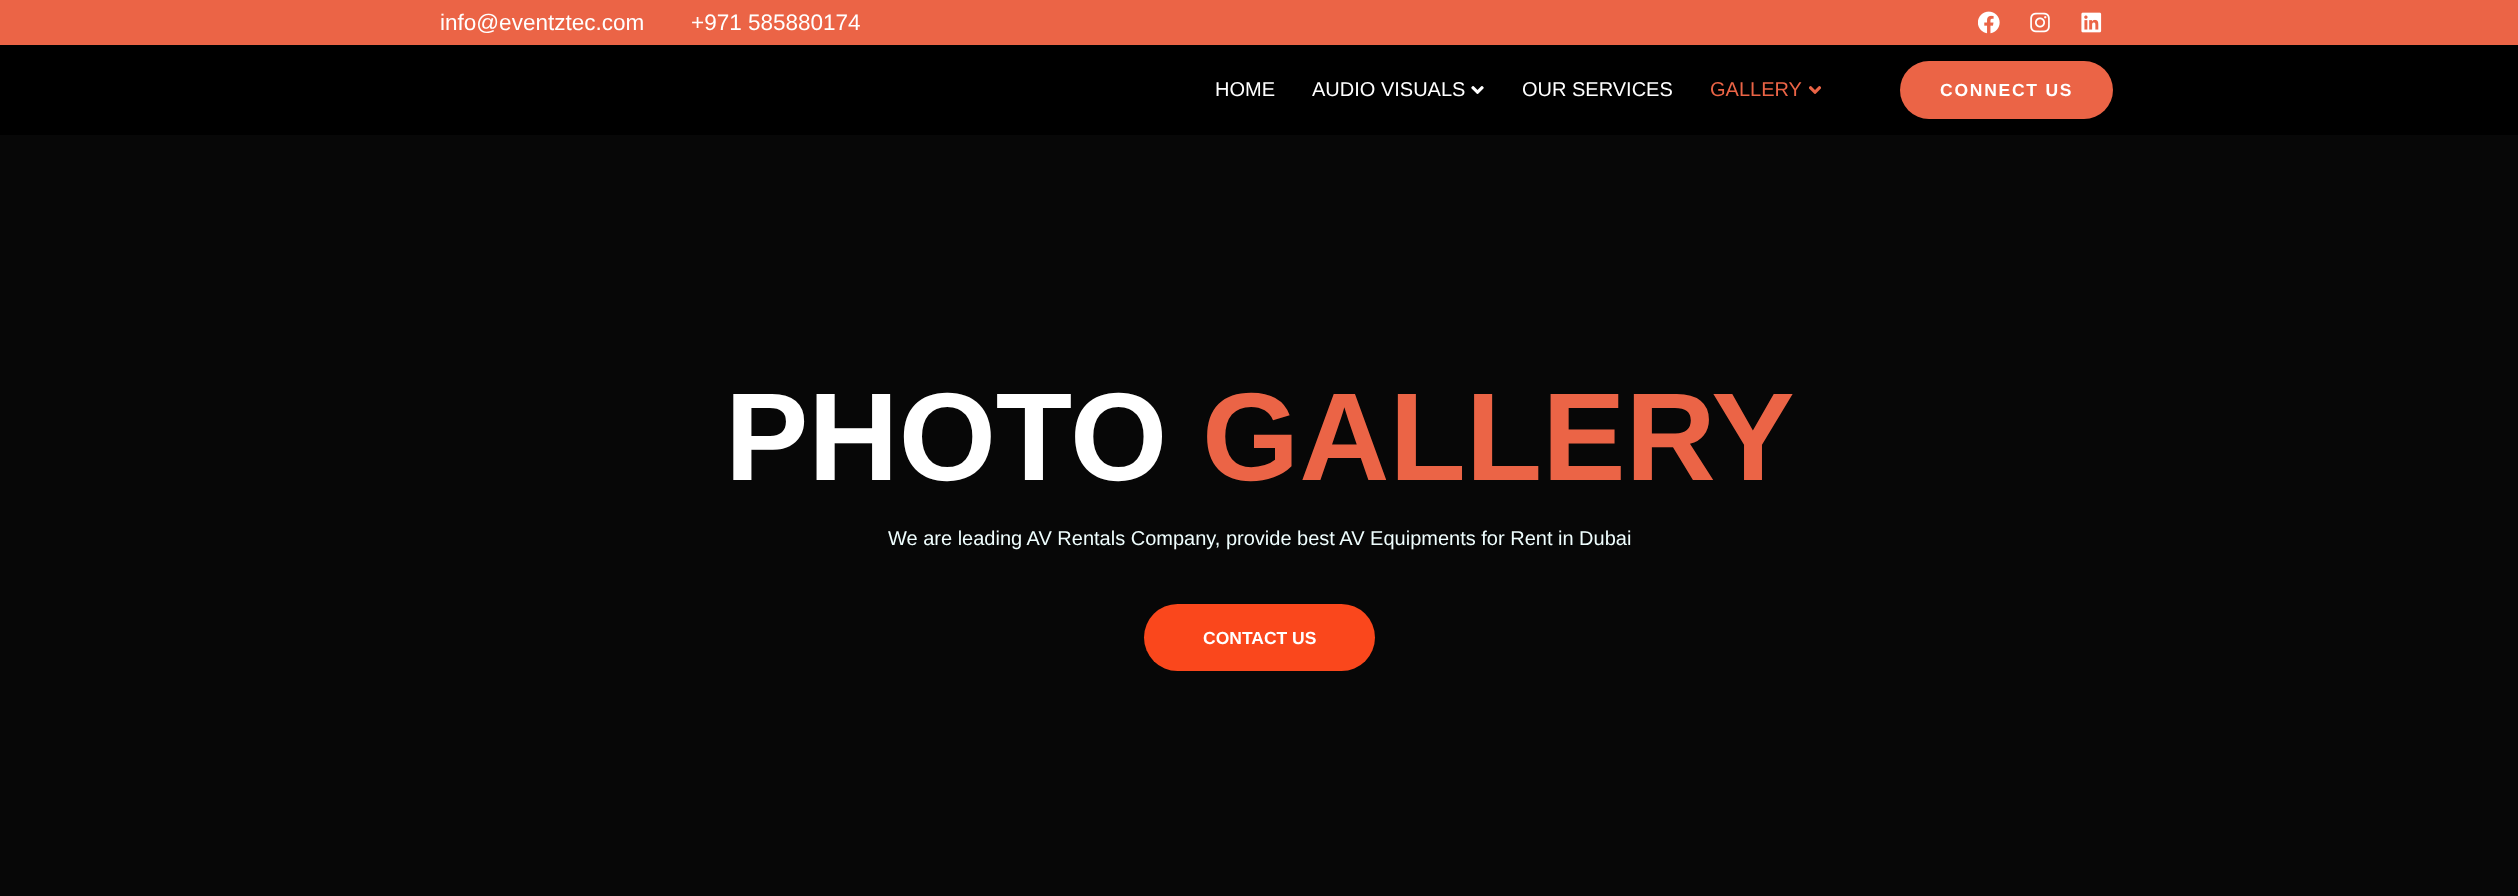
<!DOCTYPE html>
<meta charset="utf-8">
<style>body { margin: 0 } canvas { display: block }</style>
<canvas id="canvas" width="2518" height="896"></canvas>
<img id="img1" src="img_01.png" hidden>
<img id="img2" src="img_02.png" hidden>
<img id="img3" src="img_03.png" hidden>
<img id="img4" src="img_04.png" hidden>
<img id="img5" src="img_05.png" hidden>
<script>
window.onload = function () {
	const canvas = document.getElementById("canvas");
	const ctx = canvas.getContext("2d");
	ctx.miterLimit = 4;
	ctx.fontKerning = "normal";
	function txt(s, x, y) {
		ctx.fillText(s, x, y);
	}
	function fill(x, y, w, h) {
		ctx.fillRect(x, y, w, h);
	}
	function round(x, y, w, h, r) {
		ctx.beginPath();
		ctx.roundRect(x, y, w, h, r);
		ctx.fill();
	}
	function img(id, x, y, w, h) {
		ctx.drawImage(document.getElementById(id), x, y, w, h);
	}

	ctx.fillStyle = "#070707";
	fill(0, 0, 2518, 896);
	ctx.fillStyle = "#EB6446";
	fill(0, 0, 2518, 45);
	img("img1", 1978, 11, 22, 23);
	img("img2", 2030, 12, 20, 21);
	img("img3", 2081, 12, 21, 21);
	ctx.fillStyle = "#000000";
	fill(0, 45, 2518, 90);
	img("img4", 1471, 86, 13, 8);
	img("img5", 1809, 86, 12, 8);
	ctx.fillStyle = "#EB6446";
	round(1900, 61, 213, 58, 29);
	ctx.fillStyle = "#FA471C";
	round(1144, 604, 231, 67, 33.5);
	ctx.font = "22.5px Liberation Sans";
	ctx.fillStyle = "#FFFFFF";
	txt("info@eventztec.com", 440, 30);
	txt("+971 585880174", 691, 30);
	ctx.font = "20px Liberation Sans";
	txt("HOME", 1215, 96);
	txt("AUDIO VISUALS", 1312, 96);
	txt("OUR SERVICES", 1522, 96);
	ctx.fillStyle = "#EB6446";
	txt("GALLERY", 1710, 96);
	ctx.letterSpacing = "1.75px";
	ctx.font = "bold 17.5px Liberation Sans";
	ctx.fillStyle = "#FFFFFF";
	txt("CONNECT US", 1940, 96);
	ctx.letterSpacing = "0px";
	ctx.font = "bold 125px Liberation Sans";
	txt("PHOTO", 725, 480);
	ctx.fillStyle = "#EB6446";
	txt("GALLERY", 1202, 480);
	ctx.font = "20px Liberation Sans";
	ctx.fillStyle = "#EFFEFE";
	txt("We are leading AV Rentals Company, provide best AV Equipments for Rent in Dubai", 888, 545);
	ctx.font = "bold 17.5px Liberation Sans";
	ctx.fillStyle = "#FFFFFF";
	txt("CONTACT US", 1203, 644);
};
</script>
